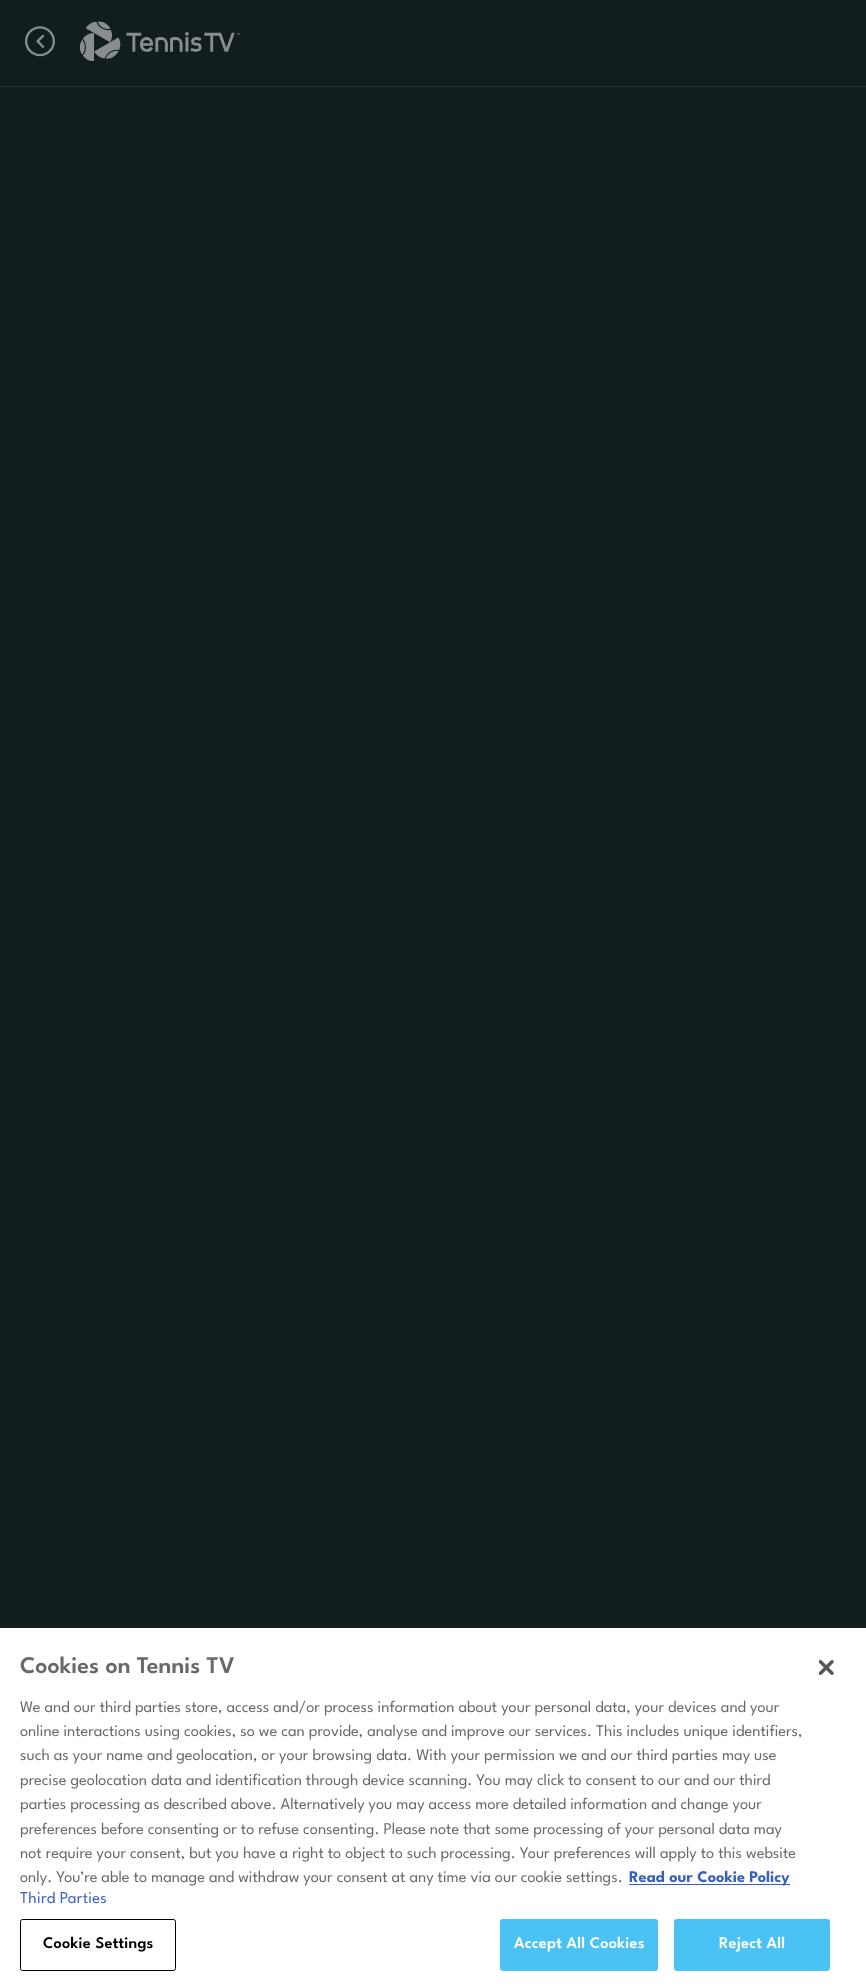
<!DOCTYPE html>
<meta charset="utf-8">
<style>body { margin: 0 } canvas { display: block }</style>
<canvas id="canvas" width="866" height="1988"></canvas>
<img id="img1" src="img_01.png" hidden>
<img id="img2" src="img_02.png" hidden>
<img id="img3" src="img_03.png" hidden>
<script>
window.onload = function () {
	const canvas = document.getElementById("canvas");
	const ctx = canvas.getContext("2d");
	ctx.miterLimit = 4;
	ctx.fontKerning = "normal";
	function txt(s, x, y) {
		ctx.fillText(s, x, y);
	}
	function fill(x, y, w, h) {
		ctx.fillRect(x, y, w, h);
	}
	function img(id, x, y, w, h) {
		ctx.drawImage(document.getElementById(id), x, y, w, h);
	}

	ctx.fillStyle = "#111D1E";
	fill(0, 0, 866, 1988);
	ctx.fillStyle = "#293435";
	fill(0, 86, 866, 1);
	img("img1", 25, 26, 30, 31);
	img("img2", 80, 21, 160, 40);
	ctx.fillStyle = "#FFFFFF";
	fill(0, 1628, 866, 360);
	ctx.fillStyle = "#3860BE";
	fill(629, 1884, 161, 1);
	ctx.beginPath();
	ctx.roundRect(20.5, 1919.5, 155, 51, 2);
	ctx.strokeStyle = "#000000";
	ctx.stroke();
	ctx.fillStyle = "#4AC2F4";
	ctx.beginPath();
	ctx.roundRect(500.5, 1919.5, 157, 51, 2);
	ctx.fill();
	ctx.strokeStyle = "#4AC2F4";
	ctx.stroke();
	ctx.beginPath();
	ctx.roundRect(674.5, 1919.5, 155, 51, 2);
	ctx.fill();
	ctx.stroke();
	img("img3", 819, 1660, 15, 15);
	ctx.font = "600 24px League Spartan";
	ctx.fillStyle = "#696969";
	txt("Cookies on Tennis TV", 20, 1673);
	ctx.font = "16.25px League Spartan";
	txt("We and our third parties store, access and/or process information about your personal data, your devices and your", 20, 1712);
	txt("online interactions using cookies, so we can provide, analyse and improve our services. This includes unique identifiers,", 20, 1736);
	txt("such as your name and geolocation, or your browsing data. With your permission we and our third parties may use", 20, 1760);
	txt("precise geolocation data and identification through device scanning. You may click to consent to our and our third", 20, 1785);
	txt("parties processing as described above. Alternatively you may access more detailed information and change your", 20, 1809);
	txt("preferences before consenting or to refuse consenting. Please note that some processing of your personal data may", 20, 1834);
	txt("not require your consent, but you have a right to object to such processing. Your preferences will apply to this website", 20, 1858);
	txt("only. You’re able to manage and withdraw your consent at any time via our cookie settings.", 20, 1882);
	ctx.font = "bold 16.25px League Spartan";
	ctx.fillStyle = "#3860BE";
	txt("Read our Cookie Policy", 629, 1882);
	ctx.letterSpacing = "0.2px";
	ctx.font = "16.5px League Spartan";
	txt("Third Parties", 20, 1903);
	ctx.font = "600 16.25px League Spartan";
	ctx.fillStyle = "#000000";
	txt("Cookie Settings", 43, 1948);
	ctx.fillStyle = "#FFFFFF";
	txt("Accept All Cookies", 514, 1948);
	txt("Reject All", 719, 1948);
};
</script>
